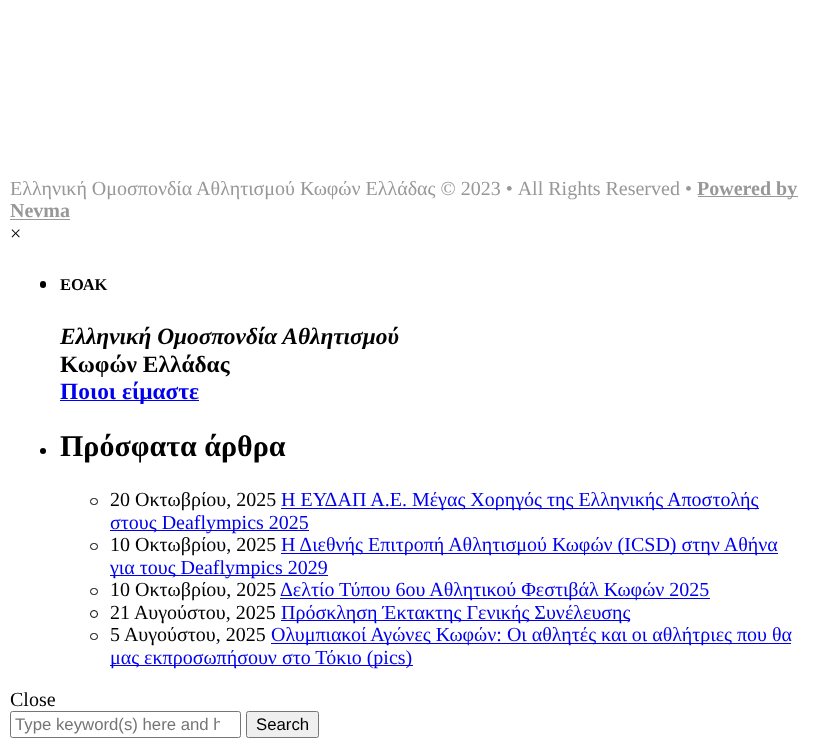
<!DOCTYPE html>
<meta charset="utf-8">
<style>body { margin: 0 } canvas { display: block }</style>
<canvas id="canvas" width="815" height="747"></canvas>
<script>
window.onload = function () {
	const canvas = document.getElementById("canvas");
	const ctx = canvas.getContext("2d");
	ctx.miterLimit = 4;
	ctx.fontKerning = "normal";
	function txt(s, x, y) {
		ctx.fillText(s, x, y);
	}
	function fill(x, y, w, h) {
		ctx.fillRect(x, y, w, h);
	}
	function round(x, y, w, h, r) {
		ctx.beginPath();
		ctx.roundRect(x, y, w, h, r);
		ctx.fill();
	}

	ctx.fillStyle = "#FFFFFF";
	fill(0, 0, 815, 747);
	ctx.fillStyle = "#989898";
	fill(698, 196, 100, 1);
	fill(10, 219, 60, 1);
	ctx.fillStyle = "#000000";
	round(40, 281, 6, 7, 3);
	ctx.fillStyle = "#0000EE";
	fill(60, 400, 139, 1);
	ctx.fillStyle = "#000000";
	ctx.beginPath();
	ctx.arc(43, 451, 3, 0, Math.PI * 2);
	ctx.fill();
	ctx.beginPath();
	ctx.roundRect(90.5, 498.5, 7, 6, 3);
	ctx.strokeStyle = "#000000";
	ctx.stroke();
	ctx.fillStyle = "#0000EE";
	fill(281, 508, 478, 1);
	fill(110, 530, 199, 1);
	ctx.beginPath();
	ctx.roundRect(90.5, 543.5, 7, 6, 3);
	ctx.stroke();
	fill(281, 553, 497, 1);
	fill(110, 575, 218, 1);
	ctx.beginPath();
	ctx.roundRect(90.5, 588.5, 7, 6, 3);
	ctx.stroke();
	fill(280, 598, 430, 1);
	ctx.beginPath();
	ctx.arc(94, 614, 3.5, 0, Math.PI * 2);
	ctx.stroke();
	fill(281, 620, 349, 1);
	ctx.beginPath();
	ctx.roundRect(90.5, 633.5, 7, 6, 3);
	ctx.stroke();
	fill(271, 643, 520, 1);
	fill(110, 665, 303, 1);
	ctx.beginPath();
	ctx.roundRect(10.5, 711.5, 230, 26, 2);
	ctx.strokeStyle = "#767676";
	ctx.stroke();
	ctx.fillStyle = "#EFEFEF";
	ctx.beginPath();
	ctx.roundRect(246.5, 711.5, 72, 26, 2);
	ctx.fill();
	ctx.stroke();
	ctx.font = "20px Liberation Serif";
	ctx.fillStyle = "#989898";
	txt("Ελληνική Ομοσπονδία Αθλητισμού Κωφών Ελλάδας © 2023 • All Rights Reserved •", 10, 195);
	ctx.font = "bold 20px Liberation Serif";
	txt("Powered by", 697, 195);
	txt("Nevma", 10, 217);
	ctx.font = "20px Liberation Serif";
	ctx.fillStyle = "#000000";
	txt("×", 10, 240);
	ctx.font = "bold 16.5px Liberation Serif";
	txt("ΕΟΑΚ", 60, 290);
	ctx.font = "italic bold 23.4px Liberation Serif";
	txt("Ελληνική Ομοσπονδία Αθλητισμού", 60, 344);
	ctx.font = "bold 23.4px Liberation Serif";
	txt("Κωφών Ελλάδας", 60, 372);
	ctx.fillStyle = "#0000EE";
	txt("Ποιοι είμαστε", 60, 399);
	ctx.font = "bold 30px Liberation Serif";
	ctx.fillStyle = "#000000";
	txt("Πρόσφατα άρθρα", 60, 456);
	ctx.font = "20px Liberation Serif";
	txt("20 Οκτωβρίου, 2025", 110, 506);
	ctx.fillStyle = "#0000EE";
	txt("Η ΕΥΔΑΠ Α.Ε. Μέγας Χορηγός της Ελληνικής Αποστολής", 281, 506);
	txt("στους Deaflympics 2025", 110, 529);
	ctx.fillStyle = "#000000";
	txt("10 Οκτωβρίου, 2025", 110, 551);
	ctx.fillStyle = "#0000EE";
	txt("Η Διεθνής Επιτροπή Αθλητισμού Κωφών (ICSD) στην Αθήνα", 281, 551);
	txt("για τους Deaflympics 2029", 110, 574);
	ctx.fillStyle = "#000000";
	txt("10 Οκτωβρίου, 2025", 110, 596);
	ctx.fillStyle = "#0000EE";
	txt("Δελτίο Τύπου 6ου Αθλητικού Φεστιβάλ Κωφών 2025", 280, 596);
	ctx.fillStyle = "#000000";
	txt("21 Αυγούστου, 2025", 110, 619);
	ctx.fillStyle = "#0000EE";
	txt("Πρόσκληση Έκτακτης Γενικής Συνέλευσης", 281, 619);
	ctx.fillStyle = "#000000";
	txt("5 Αυγούστου, 2025", 110, 641);
	ctx.fillStyle = "#0000EE";
	txt("Ολυμπιακοί Αγώνες Κωφών: Οι αθλητές και οι αθλήτριες που θα", 271, 641);
	txt("μας εκπροσωπήσουν στο Τόκιο (pics)", 110, 664);
	ctx.fillStyle = "#000000";
	txt("Close", 10, 706);
	ctx.save();
	ctx.beginPath();
	ctx.rect(15, 715, 205, 19);
	ctx.clip();
	ctx.font = "16.75px Liberation Sans";
	ctx.fillStyle = "#757575";
	txt("Type keyword(s) here and h", 15, 730);
	ctx.restore();
	ctx.font = "16.75px Liberation Sans";
	txt("Search", 256, 730);
};
</script>
